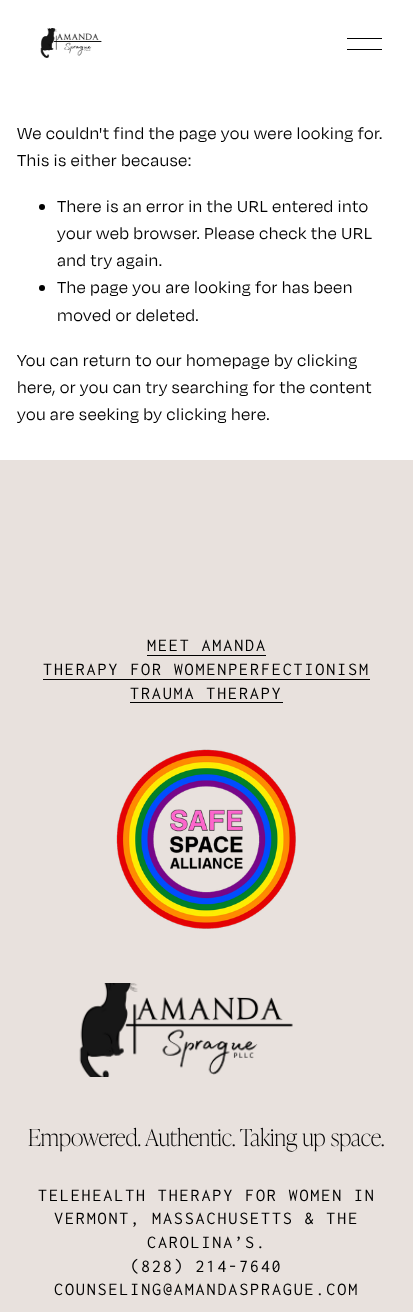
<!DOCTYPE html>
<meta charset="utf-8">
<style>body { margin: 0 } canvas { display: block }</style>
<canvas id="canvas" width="413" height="1312"></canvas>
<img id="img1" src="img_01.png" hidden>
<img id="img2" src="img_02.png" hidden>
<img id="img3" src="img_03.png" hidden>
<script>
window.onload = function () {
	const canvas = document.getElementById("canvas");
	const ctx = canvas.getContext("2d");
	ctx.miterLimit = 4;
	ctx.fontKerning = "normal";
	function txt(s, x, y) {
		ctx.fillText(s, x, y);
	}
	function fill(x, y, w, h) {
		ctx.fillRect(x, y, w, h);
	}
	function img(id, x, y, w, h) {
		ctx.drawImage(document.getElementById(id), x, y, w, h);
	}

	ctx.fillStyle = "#FFFFFF";
	fill(0, 0, 413, 1312);
	img("img1", 40, 28, 62, 30);
	ctx.fillStyle = "#000000";
	fill(347, 38, 35, 1);
	fill(347, 49, 35, 1);
	ctx.beginPath();
	ctx.arc(42, 207, 3, 0, Math.PI * 2);
	ctx.fill();
	ctx.beginPath();
	ctx.arc(42, 288, 3, 0, Math.PI * 2);
	ctx.fill();
	ctx.fillStyle = "#E8E1DD";
	fill(0, 460, 413, 852);
	ctx.fillStyle = "#000000";
	fill(147, 655, 119, 1);
	fill(43, 679, 327, 1);
	fill(130, 702, 153, 1);
	img("img2", 116, 749, 180, 180);
	img("img3", 79, 983, 214, 94);
	ctx.letterSpacing = "0.35px";
	ctx.font = "18.2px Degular";
	txt("We couldn't find the page you were looking for.", 17, 139);
	txt("This is either because:", 17, 166);
	txt("There is an error in the URL entered into", 57, 212);
	txt("your web browser. Please check the URL", 57, 239);
	txt("and try again.", 57, 266);
	txt("The page you are looking for has been", 57, 293);
	txt("moved or deleted.", 57, 321);
	txt("You can return to our homepage by clicking", 17, 366);
	txt("here, or you can try searching for the content", 17, 393);
	txt("you are seeking by clicking here.", 17, 420);
	ctx.letterSpacing = "1.8px";
	ctx.font = "18.2px Inconsolata";
	txt("MEET AMANDA", 147, 651);
	txt("THERAPY FOR WOMENPERFECTIONISM", 43, 675);
	txt("TRAUMA THERAPY", 130, 699);
	ctx.letterSpacing = "0px";
	ctx.font = "100 23.5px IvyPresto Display";
	txt("Empowered. Authentic. Taking up space.", 28, 1146);
	ctx.letterSpacing = "1.8px";
	ctx.font = "18.2px Inconsolata";
	txt("TELEHEALTH THERAPY FOR WOMEN IN", 38, 1201);
	txt("VERMONT, MASSACHUSETTS & THE", 54, 1224);
	txt("CAROLINA’S.", 147, 1248);
	txt("(828) 214-7640", 130, 1272);
	txt("COUNSELING@AMANDASPRAGUE.COM", 54, 1295);
};
</script>
